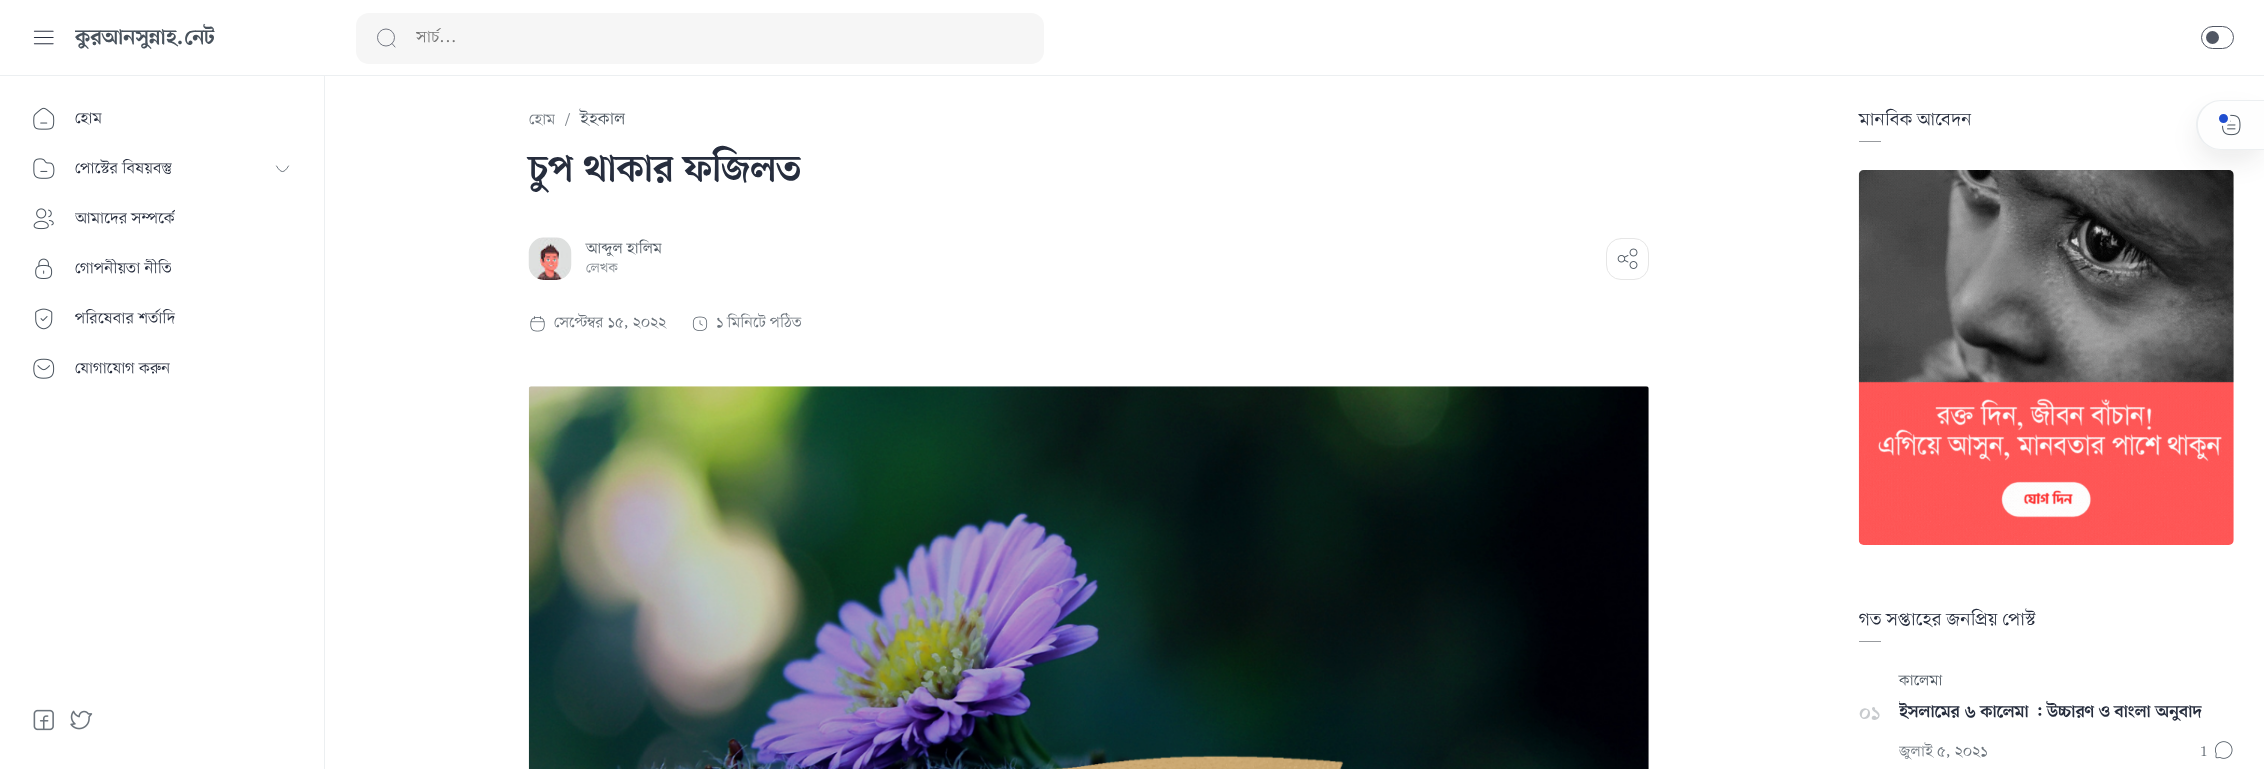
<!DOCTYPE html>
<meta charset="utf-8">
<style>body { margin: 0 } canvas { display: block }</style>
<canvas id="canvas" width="2264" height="769"></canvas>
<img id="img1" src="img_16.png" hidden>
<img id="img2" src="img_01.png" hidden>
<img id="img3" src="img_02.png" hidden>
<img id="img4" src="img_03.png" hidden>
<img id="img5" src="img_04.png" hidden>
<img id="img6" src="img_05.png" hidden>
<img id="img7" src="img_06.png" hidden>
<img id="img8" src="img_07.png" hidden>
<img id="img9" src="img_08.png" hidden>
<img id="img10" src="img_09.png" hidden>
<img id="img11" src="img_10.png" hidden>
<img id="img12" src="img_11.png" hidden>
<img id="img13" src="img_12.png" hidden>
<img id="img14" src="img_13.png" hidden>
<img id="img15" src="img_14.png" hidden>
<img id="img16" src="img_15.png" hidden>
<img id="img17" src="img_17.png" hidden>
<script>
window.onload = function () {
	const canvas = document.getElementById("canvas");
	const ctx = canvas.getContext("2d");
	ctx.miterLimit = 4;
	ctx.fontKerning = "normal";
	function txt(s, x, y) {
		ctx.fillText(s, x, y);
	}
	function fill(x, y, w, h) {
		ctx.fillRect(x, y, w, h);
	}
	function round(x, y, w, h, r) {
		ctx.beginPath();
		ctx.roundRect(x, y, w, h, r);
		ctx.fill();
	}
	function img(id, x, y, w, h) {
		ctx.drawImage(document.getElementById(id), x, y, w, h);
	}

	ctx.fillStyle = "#FFFFFF";
	fill(0, 0, 2264, 769);
	img("img1", 1858, 170, 376, 375);
	ctx.fillStyle = "rgba(30, 30, 30, 0.08)";
	ctx.filter = "blur(12.5px)";
	ctx.beginPath();
	ctx.roundRect(2196, 113, 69, 50, 25);
	ctx.fill();
	ctx.filter = "none";
	ctx.fillStyle = "#ECEFF1";
	fill(0, 75, 2264, 1);
	img("img2", 33, 30, 21, 15);
	ctx.fillStyle = "#F6F6F6";
	round(356, 13, 688, 51, 13);
	ctx.beginPath();
	ctx.arc(386, 37.5, 8.5, 0, Math.PI * 2);
	ctx.strokeStyle = "#646975";
	ctx.lineWidth = 0.9;
	ctx.stroke();
	ctx.beginPath();
	ctx.moveTo(392, 43.5);
	ctx.lineTo(395, 47);
	ctx.lineCap = "round";
	ctx.lineJoin = "round";
	ctx.stroke();
	ctx.beginPath();
	ctx.roundRect(2201.5, 26.5, 32, 22, 11);
	ctx.strokeStyle = "#515764";
	ctx.lineWidth = 1;
	ctx.lineJoin = "miter";
	ctx.stroke();
	ctx.fillStyle = "#515764";
	ctx.beginPath();
	ctx.arc(2212.5, 37.5, 6.5, 0, Math.PI * 2);
	ctx.fill();
	ctx.fillStyle = "#ECEFF1";
	fill(324, 76, 1, 693);
	img("img3", 33, 107, 22, 23);
	img("img4", 33, 158, 22, 21);
	ctx.beginPath();
	ctx.moveTo(288.5, 166);
	ctx.bezierCurveTo(284, 173.5, 281, 173.5, 276.5, 166);
	ctx.strokeStyle = "#48525C";
	ctx.lineWidth = 0.8;
	ctx.lineJoin = "round";
	ctx.stroke();
	img("img5", 33, 208, 21, 22);
	img("img6", 35, 258, 18, 21);
	img("img7", 35, 308, 18, 22);
	img("img8", 33, 358, 22, 21);
	img("img9", 33, 709, 21, 22);
	img("img10", 70, 710, 23, 20);
	img("img11", 528, 237, 44, 43);
	ctx.beginPath();
	ctx.roundRect(1606.5, 238.5, 42, 41, 14.5);
	ctx.strokeStyle = "#E6E6E6";
	ctx.lineWidth = 1;
	ctx.lineJoin = "miter";
	ctx.stroke();
	img("img12", 1617, 248, 21, 21);
	img("img13", 530, 316, 15, 16);
	img("img14", 692, 316, 16, 15);
	img("img15", 528, 386, 1121, 383);
	ctx.fillStyle = "#FEFEFE";
	ctx.beginPath();
	ctx.moveTo(2221, 100);
	ctx.lineTo(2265, 100);
	ctx.lineTo(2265, 150);
	ctx.lineTo(2221, 150);
	ctx.bezierCurveTo(2207, 150, 2196, 139, 2196, 125);
	ctx.bezierCurveTo(2196, 111, 2207, 100, 2221, 100);
	ctx.closePath();
	ctx.fill();
	ctx.fillStyle = "#ECEFF1";
	ctx.beginPath();
	ctx.moveTo(2221, 100);
	ctx.lineTo(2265, 100);
	ctx.lineTo(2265, 150);
	ctx.lineTo(2221, 150);
	ctx.bezierCurveTo(2207, 150, 2196, 139, 2196, 125);
	ctx.bezierCurveTo(2196, 111, 2207, 100, 2221, 100);
	ctx.closePath();
	ctx.moveTo(2221, 101);
	ctx.lineTo(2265, 101);
	ctx.lineTo(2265, 149);
	ctx.lineTo(2221, 149);
	ctx.bezierCurveTo(2208, 149, 2198, 138, 2198, 125);
	ctx.bezierCurveTo(2198, 112, 2208, 101, 2221, 101);
	ctx.closePath();
	ctx.fill("evenodd");
	img("img16", 2222, 114, 19, 22);
	ctx.fillStyle = "#204ECF";
	ctx.beginPath();
	ctx.arc(2223.5, 118.5, 6, 0, Math.PI * 2);
	ctx.fill();
	ctx.strokeStyle = "#FEFEFE";
	ctx.lineWidth = 3;
	ctx.stroke();
	ctx.fillStyle = "#989B9F";
	fill(1859, 141, 22, 1);
	fill(1859, 641, 22, 1);
	img("img17", 2215, 741, 18, 18);
	ctx.save();
	ctx.beginPath();
	ctx.rect(75, 23, 140, 30);
	ctx.clip();
	ctx.font = "bold 22.5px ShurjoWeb";
	ctx.fillStyle = "#48525C";
	txt("কুরআনসুন্নাহ.নেট", 75, 44);
	ctx.restore();
	ctx.save();
	ctx.beginPath();
	ctx.rect(416, 28, 568, 21);
	ctx.clip();
	ctx.font = "17px ShurjoWeb";
	ctx.fillStyle = "#757575";
	txt("সার্চ...", 416, 42);
	ctx.restore();
	ctx.font = "16.25px ShurjoWeb";
	ctx.fillStyle = "#262D3D";
	txt("হোম", 75, 123);
	ctx.save();
	ctx.beginPath();
	ctx.rect(75, 159, 98, 21);
	ctx.clip();
	txt("পোস্টের বিষয়বস্তু", 75, 173);
	ctx.restore();
	ctx.save();
	ctx.beginPath();
	ctx.rect(75, 209, 100, 21);
	ctx.clip();
	txt("আমাদের সম্পর্কে", 75, 223);
	ctx.restore();
	ctx.save();
	ctx.beginPath();
	ctx.rect(75, 259, 96, 21);
	ctx.clip();
	txt("গোপনীয়তা নীতি", 75, 273);
	ctx.restore();
	txt("পরিষেবার শর্তাদি", 75, 323);
	txt("যোগাযোগ করুন", 75, 373);
	ctx.font = "15.75px ShurjoWeb";
	ctx.fillStyle = "#6D757D";
	txt("হোম", 529, 124);
	ctx.fillStyle = "#7F868D";
	txt("/", 565, 124);
	ctx.font = "17.5px ShurjoWeb";
	ctx.fillStyle = "#48525C";
	txt("ইহকাল", 580, 124);
	ctx.font = "bold 40px ShurjoWeb";
	ctx.fillStyle = "#262D3D";
	txt("চুপ থাকার ফজিলত", 529, 181);
	ctx.font = "15.75px ShurjoWeb";
	ctx.fillStyle = "#48525C";
	txt("আব্দুল হালিম", 586, 253);
	ctx.font = "14px ShurjoWeb";
	ctx.fillStyle = "#7F868D";
	txt("লেখক", 586, 272);
	ctx.font = "15.75px ShurjoWeb";
	ctx.fillStyle = "#6D757D";
	txt("সেপ্টেম্বর ১৫, ২০২২", 554, 327);
	txt("১ মিনিটে পঠিত", 716, 327);
	ctx.font = "18.75px ShurjoWeb";
	ctx.fillStyle = "#262D3D";
	txt("মানবিক আবেদন", 1859, 125);
	txt("গত সপ্তাহের জনপ্রিয় পোস্ট", 1859, 625);
	ctx.font = "15.75px ShurjoWeb";
	ctx.fillStyle = "#48525C";
	txt("কালেমা", 1899, 685);
	ctx.font = "bold 20px ShurjoWeb";
	ctx.fillStyle = "#C8CBCE";
	txt("০১", 1859, 719);
	ctx.save();
	ctx.beginPath();
	ctx.rect(1899, 700, 335, 28);
	ctx.clip();
	ctx.font = "bold 18px ShurjoWeb";
	ctx.fillStyle = "#262D3D";
	txt("ইসলামের ৬ কালেমা : উচ্চারণ ও বাংলা অনুবাদ", 1899, 717);
	ctx.restore();
	ctx.save();
	ctx.beginPath();
	ctx.rect(1899, 740, 89, 25);
	ctx.clip();
	ctx.font = "15.75px ShurjoWeb";
	ctx.fillStyle = "#6D757D";
	txt("জুলাই ৫, ২০২১", 1899, 756);
	ctx.restore();
	ctx.font = "15.75px ShurjoWeb";
	ctx.fillStyle = "#6D757D";
	txt("1", 2200, 756);
};
</script>
